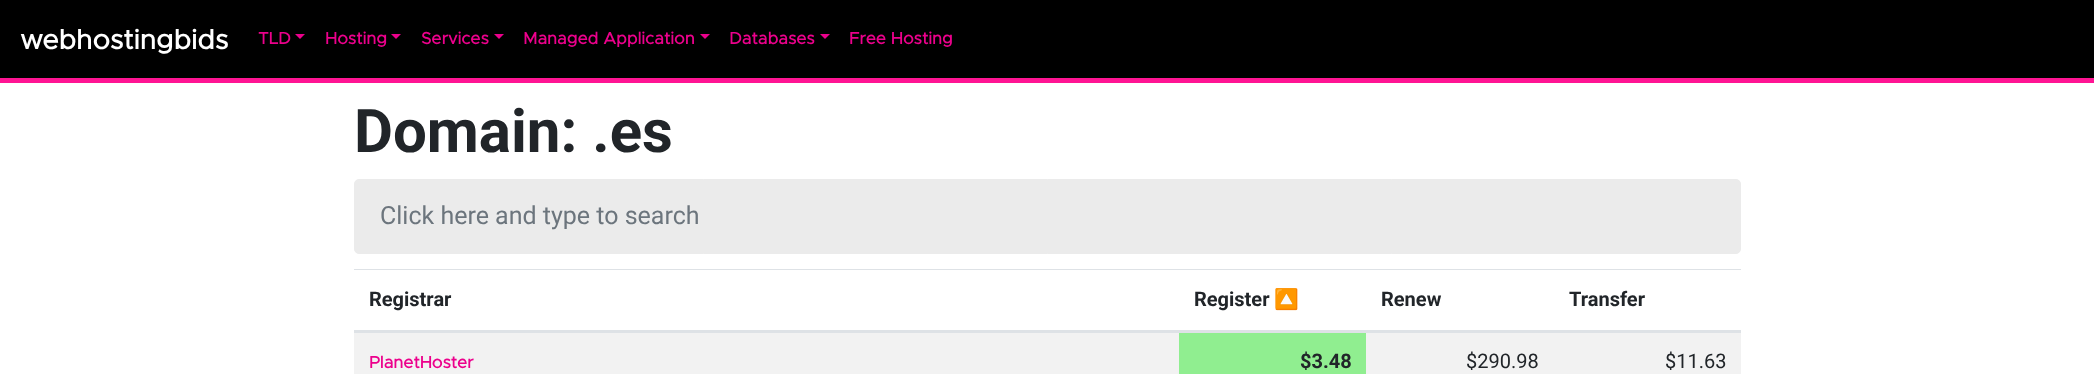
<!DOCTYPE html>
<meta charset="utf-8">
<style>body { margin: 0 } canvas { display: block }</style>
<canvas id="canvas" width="2094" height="374"></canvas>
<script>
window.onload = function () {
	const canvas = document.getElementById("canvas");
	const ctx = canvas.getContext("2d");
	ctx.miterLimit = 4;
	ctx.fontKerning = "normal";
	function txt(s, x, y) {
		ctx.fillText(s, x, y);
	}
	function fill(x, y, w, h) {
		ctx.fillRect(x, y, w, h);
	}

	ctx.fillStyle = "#FFFFFF";
	fill(0, 0, 2094, 374);
	ctx.fillStyle = "#000000";
	fill(0, 0, 2094, 78);
	ctx.fillStyle = "#EC008C";
	ctx.beginPath();
	ctx.moveTo(295, 34);
	ctx.lineTo(305, 34);
	ctx.lineTo(300, 39);
	ctx.closePath();
	ctx.fill();
	ctx.beginPath();
	ctx.moveTo(391, 34);
	ctx.lineTo(401, 34);
	ctx.lineTo(396, 39);
	ctx.closePath();
	ctx.fill();
	ctx.beginPath();
	ctx.moveTo(494, 34);
	ctx.lineTo(504, 34);
	ctx.lineTo(499, 39);
	ctx.closePath();
	ctx.fill();
	ctx.beginPath();
	ctx.moveTo(700, 34);
	ctx.lineTo(710, 34);
	ctx.lineTo(705, 39);
	ctx.closePath();
	ctx.fill();
	ctx.beginPath();
	ctx.moveTo(820, 34);
	ctx.lineTo(830, 34);
	ctx.lineTo(825, 39);
	ctx.closePath();
	ctx.fill();
	ctx.fillStyle = "#FF1493";
	fill(0, 78, 2094, 5);
	ctx.fillStyle = "#EBEBEB";
	ctx.beginPath();
	ctx.roundRect(354.5, 179.5, 1386, 74, 4.5);
	ctx.fill();
	ctx.strokeStyle = "#EBEBEB";
	ctx.stroke();
	ctx.fillStyle = "#DEE2E6";
	fill(354, 269, 1387, 1);
	fill(354, 330, 1387, 3);
	ctx.fillStyle = "#F2F2F2";
	fill(354, 333, 1387, 41);
	ctx.fillStyle = "#90EE90";
	fill(1179, 333, 187, 41);
	ctx.font = "bold 27.5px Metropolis";
	ctx.fillStyle = "#FFFFFF";
	txt("webhostingbids", 20, 49);
	ctx.font = "bold 16.9px Metropolis";
	ctx.fillStyle = "#EC008C";
	txt("TLD", 258, 44);
	txt("Hosting", 325, 44);
	txt("Services", 421, 44);
	txt("Managed Application", 523, 44);
	txt("Databases", 729, 44);
	txt("Free Hosting", 849, 44);
	ctx.font = "bold 60px Roboto";
	ctx.fillStyle = "#212529";
	txt("Domain: .es", 354, 152);
	ctx.font = "25px Roboto";
	ctx.fillStyle = "#6C757D";
	txt("Click here and type to search", 380, 224);
	ctx.font = "bold 20px Roboto";
	ctx.fillStyle = "#212529";
	txt("Registrar", 369, 306);
	txt("Register", 1194, 306);
	ctx.font = "bold 20px Noto Color Emoji";
	txt("🔼", 1274, 306);
	ctx.font = "bold 20px Roboto";
	txt("Renew", 1381, 306);
	txt("Transfer", 1569, 306);
	ctx.font = "bold 16.9px Metropolis";
	ctx.fillStyle = "#EC008C";
	txt("PlanetHoster", 369, 368);
	ctx.font = "bold 20px Roboto";
	ctx.fillStyle = "#212529";
	txt("$3.48", 1300, 368);
	ctx.font = "20px Roboto";
	txt("$290.98", 1466, 368);
	txt("$11.63", 1665, 368);
};
</script>
